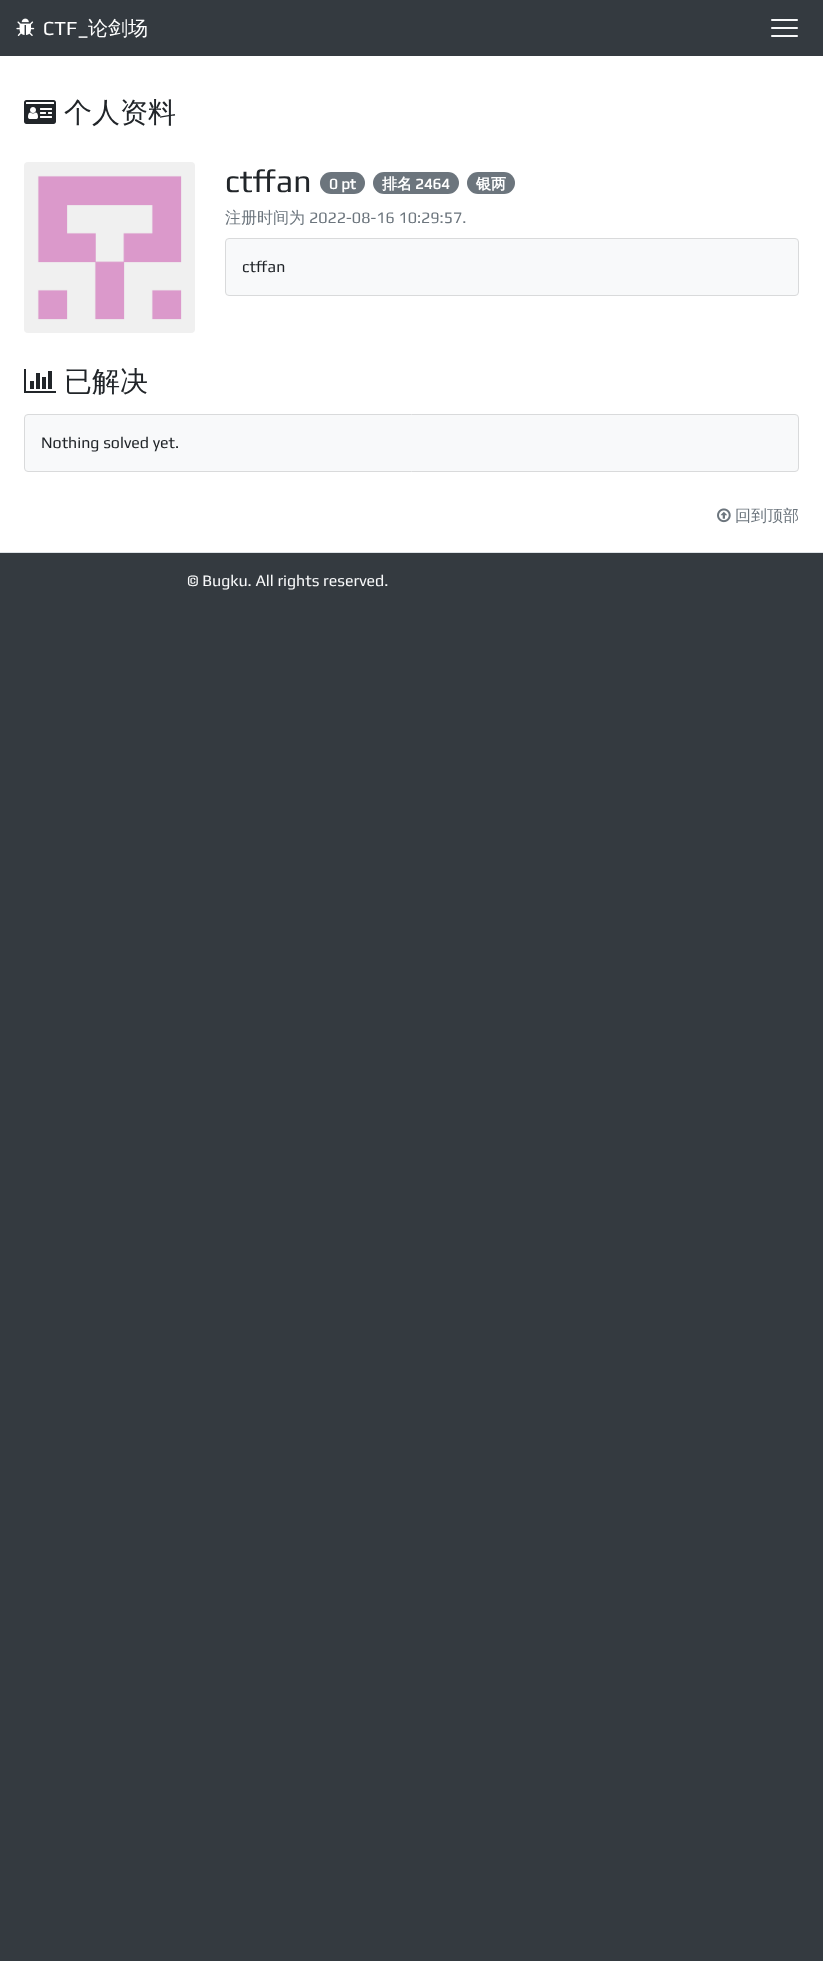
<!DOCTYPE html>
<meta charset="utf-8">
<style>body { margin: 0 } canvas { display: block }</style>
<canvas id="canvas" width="823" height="1961"></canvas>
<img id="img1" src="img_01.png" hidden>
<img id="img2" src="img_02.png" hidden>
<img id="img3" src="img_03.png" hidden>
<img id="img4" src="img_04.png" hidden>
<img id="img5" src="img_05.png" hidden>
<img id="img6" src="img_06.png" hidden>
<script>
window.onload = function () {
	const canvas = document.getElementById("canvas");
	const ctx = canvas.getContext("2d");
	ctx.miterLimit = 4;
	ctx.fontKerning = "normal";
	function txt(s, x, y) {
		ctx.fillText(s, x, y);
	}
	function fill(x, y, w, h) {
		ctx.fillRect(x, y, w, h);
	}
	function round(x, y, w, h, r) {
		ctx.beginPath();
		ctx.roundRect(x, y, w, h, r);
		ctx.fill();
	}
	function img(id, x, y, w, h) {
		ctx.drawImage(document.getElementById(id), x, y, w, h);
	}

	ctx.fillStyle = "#343A40";
	fill(0, 0, 823, 1961);
	img("img1", 16, 18, 19, 18);
	img("img2", 771, 19, 27, 18);
	ctx.fillStyle = "#FFFFFF";
	fill(0, 56, 823, 496);
	img("img3", 24, 100, 32, 24);
	img("img4", 24, 162, 171, 171);
	ctx.fillStyle = "#6C757D";
	round(320, 172, 45, 22, 11);
	round(373, 172, 86, 22, 11);
	round(467, 172, 48, 22, 11);
	ctx.fillStyle = "#F8F9FA";
	ctx.beginPath();
	ctx.roundRect(225.5, 238.5, 573, 57, 3.5);
	ctx.fill();
	ctx.strokeStyle = "#D9DADB";
	ctx.stroke();
	img("img5", 24, 369, 32, 24);
	ctx.beginPath();
	ctx.roundRect(24.5, 414.5, 774, 57, 3.5);
	ctx.fill();
	ctx.stroke();
	img("img6", 717, 508, 14, 15);
	ctx.fillStyle = "#DEE2E6";
	fill(0, 552, 823, 1);
	ctx.font = "20px Play";
	ctx.fillStyle = "#FFFFFF";
	txt("CTF_", 43, 35);
	ctx.font = "500 20px WenQuanYi Zen Hei";
	txt("论剑场", 88, 35);
	ctx.font = "500 28px WenQuanYi Zen Hei";
	ctx.fillStyle = "#212529";
	txt("个人资料", 64, 122);
	ctx.font = "32px Play";
	txt("ctffan", 225, 192);
	ctx.font = "bold 15px Play";
	ctx.fillStyle = "#FFFFFF";
	txt("0 pt", 329, 189);
	ctx.font = "bold 15px WenQuanYi Zen Hei";
	txt("排名", 382, 189);
	ctx.font = "bold 15px Play";
	txt("2464", 415, 189);
	ctx.font = "bold 15px WenQuanYi Zen Hei";
	txt("银两", 476, 189);
	ctx.font = "500 16px WenQuanYi Zen Hei";
	ctx.fillStyle = "#6C757D";
	txt("注册时间为", 225, 223);
	ctx.font = "16px Play";
	txt("2022-08-16 10:29:57.", 309, 223);
	ctx.fillStyle = "#212529";
	txt("ctffan", 242, 272);
	ctx.font = "500 28px WenQuanYi Zen Hei";
	txt("已解决", 64, 391);
	ctx.font = "16px Play";
	txt("Nothing solved yet.", 41, 448);
	ctx.font = "500 16px WenQuanYi Zen Hei";
	ctx.fillStyle = "#6C757D";
	txt("回到顶部", 735, 521);
	ctx.font = "16px Play";
	ctx.fillStyle = "#F8F9FA";
	txt("© Bugku. All rights reserved.", 187, 586);
};
</script>
